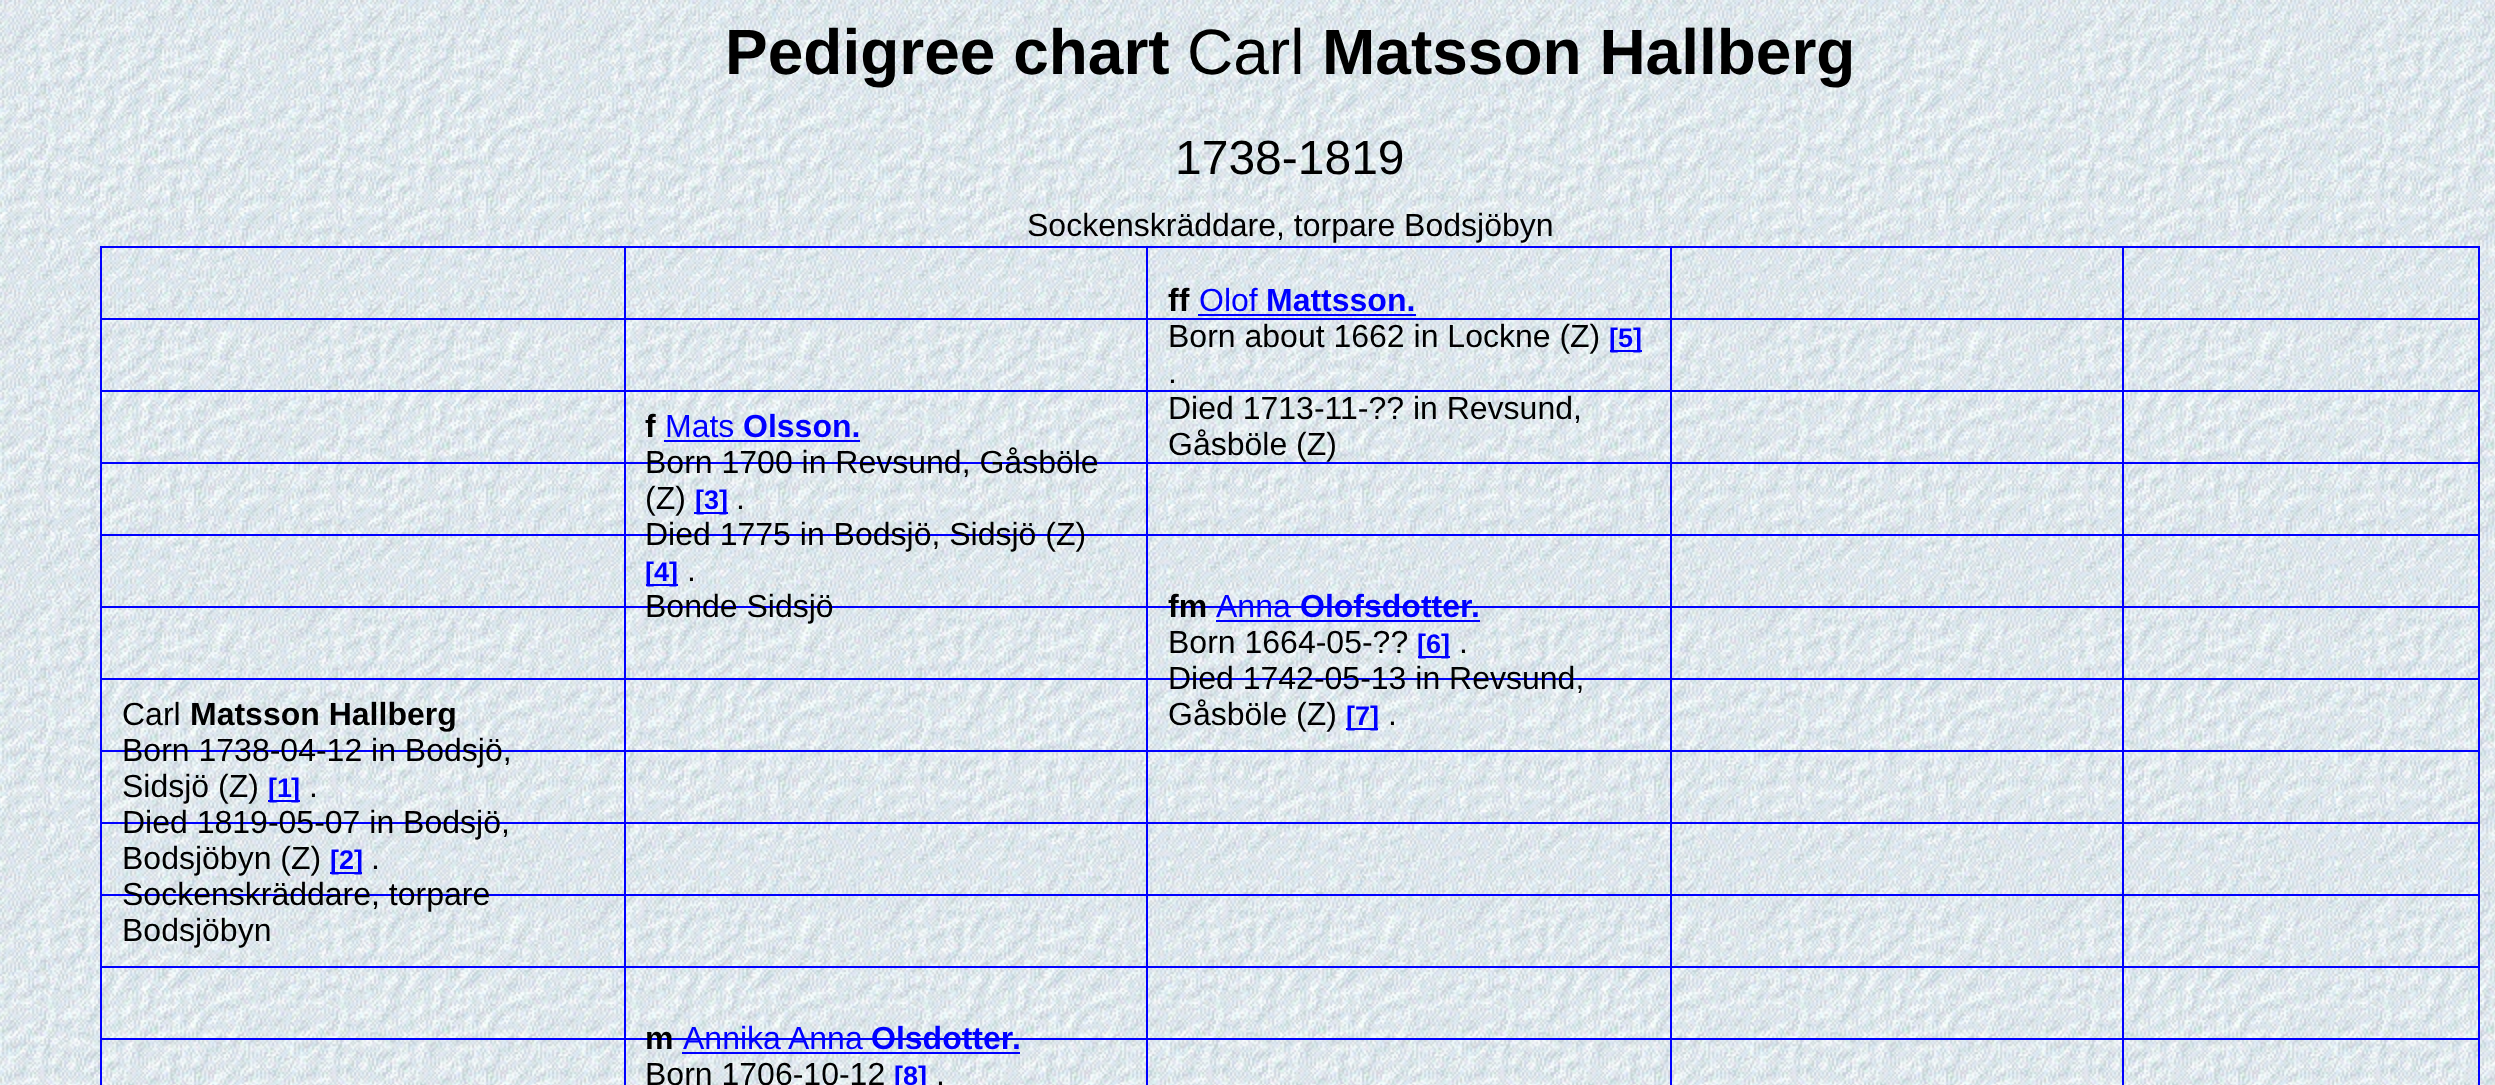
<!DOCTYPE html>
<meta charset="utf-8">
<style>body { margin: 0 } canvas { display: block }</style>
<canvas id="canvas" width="2495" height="1085"></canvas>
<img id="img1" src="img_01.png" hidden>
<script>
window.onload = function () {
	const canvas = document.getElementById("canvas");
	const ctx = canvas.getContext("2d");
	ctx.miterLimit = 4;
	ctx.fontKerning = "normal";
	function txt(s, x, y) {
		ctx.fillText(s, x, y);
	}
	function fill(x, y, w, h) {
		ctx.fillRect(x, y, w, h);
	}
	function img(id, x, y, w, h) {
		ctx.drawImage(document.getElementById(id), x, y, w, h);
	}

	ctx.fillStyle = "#FFFFFF";
	fill(0, 0, 2495, 1085);
	img("img1", 0, 0, 2495, 1085);
	ctx.fillStyle = "#0000FF";
	fill(100, 246, 2380, 2);
	fill(2478, 246, 2, 839);
	fill(100, 246, 2, 839);
	fill(100, 1038, 2380, 2);
	fill(100, 966, 2380, 2);
	fill(100, 318, 2380, 2);
	fill(100, 390, 2380, 2);
	fill(100, 462, 2380, 2);
	fill(100, 534, 2380, 2);
	fill(100, 606, 2380, 2);
	fill(100, 678, 2380, 2);
	fill(100, 750, 2380, 2);
	fill(100, 894, 2380, 2);
	fill(100, 822, 2380, 2);
	fill(2122, 246, 2, 839);
	fill(1670, 246, 2, 839);
	fill(1198, 314, 218, 2);
	fill(1610, 350, 32, 2);
	fill(664, 440, 196, 2);
	fill(694, 512, 34, 2);
	fill(646, 584, 22, 2);
	fill(668, 584, 10, 2);
	fill(268, 800, 8, 2);
	fill(276, 800, 24, 2);
	fill(330, 872, 8, 2);
	fill(338, 872, 24, 2);
	fill(1216, 620, 264, 2);
	fill(1418, 656, 32, 2);
	fill(1346, 728, 32, 2);
	fill(624, 246, 2, 839);
	fill(682, 1052, 338, 2);
	fill(1146, 246, 2, 839);
	ctx.font = "bold 64px Liberation Sans";
	ctx.fillStyle = "#000000";
	txt("Pedigree chart", 725, 74);
	ctx.font = "64px Liberation Sans";
	txt("Carl", 1187, 74);
	ctx.font = "bold 64px Liberation Sans";
	txt("Matsson Hallberg", 1322, 74);
	ctx.font = "48px Liberation Sans";
	txt("1738-1819", 1175, 174);
	ctx.font = "32px Liberation Sans";
	txt("Sockenskräddare, torpare Bodsjöbyn", 1027, 236);
	ctx.font = "bold 32px Liberation Sans";
	txt("ff", 1168, 311);
	ctx.font = "32px Liberation Sans";
	ctx.fillStyle = "#0000FF";
	txt("Olof", 1199, 311);
	ctx.font = "bold 32px Liberation Sans";
	txt("Mattsson.", 1266, 311);
	ctx.font = "32px Liberation Sans";
	ctx.fillStyle = "#000000";
	txt("Born about 1662 in Lockne (Z)", 1168, 347);
	ctx.font = "bold 27px Liberation Sans";
	ctx.fillStyle = "#0000FF";
	txt("[5]", 1609, 347);
	ctx.font = "32px Liberation Sans";
	ctx.fillStyle = "#000000";
	txt(".", 1168, 383);
	txt("Died 1713-11-?? in Revsund,", 1168, 419);
	txt("Gåsböle (Z)", 1168, 455);
	ctx.font = "bold 32px Liberation Sans";
	txt("f", 645, 437);
	ctx.font = "32px Liberation Sans";
	ctx.fillStyle = "#0000FF";
	txt("Mats", 665, 437);
	ctx.font = "bold 32px Liberation Sans";
	txt("Olsson.", 743, 437);
	ctx.font = "32px Liberation Sans";
	ctx.fillStyle = "#000000";
	txt("Born 1700 in Revsund, Gåsböle", 645, 473);
	txt("(Z)", 645, 509);
	ctx.font = "bold 27px Liberation Sans";
	ctx.fillStyle = "#0000FF";
	txt("[3]", 695, 509);
	ctx.font = "32px Liberation Sans";
	ctx.fillStyle = "#000000";
	txt(".", 736, 509);
	txt("Died 1775 in Bodsjö, Sidsjö (Z)", 645, 545);
	ctx.font = "bold 27px Liberation Sans";
	ctx.fillStyle = "#0000FF";
	txt("[4", 645, 581);
	txt("]", 669, 581);
	ctx.font = "32px Liberation Sans";
	ctx.fillStyle = "#000000";
	txt(".", 687, 581);
	txt("Bonde Sidsjö", 645, 617);
	txt("Carl", 122, 725);
	ctx.font = "bold 32px Liberation Sans";
	txt("Matsson Hallberg", 190, 725);
	ctx.font = "32px Liberation Sans";
	txt("Born 1738-04-12 in Bodsjö,", 122, 761);
	txt("Sidsjö (Z)", 122, 797);
	ctx.font = "bold 27px Liberation Sans";
	ctx.fillStyle = "#0000FF";
	txt("[1", 268, 797);
	txt("]", 291, 797);
	ctx.font = "32px Liberation Sans";
	ctx.fillStyle = "#000000";
	txt(".", 309, 797);
	txt("Died 1819-05-07 in Bodsjö,", 122, 833);
	txt("Bodsjöbyn (Z)", 122, 869);
	ctx.font = "bold 27px Liberation Sans";
	ctx.fillStyle = "#0000FF";
	txt("[2", 330, 869);
	txt("]", 354, 869);
	ctx.font = "32px Liberation Sans";
	ctx.fillStyle = "#000000";
	txt(".", 371, 869);
	txt("Sockenskräddare, torpare", 122, 905);
	txt("Bodsjöbyn", 122, 941);
	ctx.font = "bold 32px Liberation Sans";
	txt("fm", 1168, 617);
	ctx.font = "32px Liberation Sans";
	ctx.fillStyle = "#0000FF";
	txt("Anna", 1216, 617);
	ctx.font = "bold 32px Liberation Sans";
	txt("Olofsdotter", 1300, 617);
	txt(".", 1471, 617);
	ctx.font = "32px Liberation Sans";
	ctx.fillStyle = "#000000";
	txt("Born 1664-05-??", 1168, 653);
	ctx.font = "bold 27px Liberation Sans";
	ctx.fillStyle = "#0000FF";
	txt("[6]", 1417, 653);
	ctx.font = "32px Liberation Sans";
	ctx.fillStyle = "#000000";
	txt(".", 1459, 653);
	txt("Died 1742-05-13 in Revsund,", 1168, 689);
	txt("Gåsböle (Z)", 1168, 725);
	ctx.font = "bold 27px Liberation Sans";
	ctx.fillStyle = "#0000FF";
	txt("[7]", 1346, 725);
	ctx.font = "32px Liberation Sans";
	ctx.fillStyle = "#000000";
	txt(".", 1388, 725);
	ctx.font = "bold 32px Liberation Sans";
	txt("m", 645, 1049);
	ctx.font = "32px Liberation Sans";
	ctx.fillStyle = "#0000FF";
	txt("Annika Anna", 683, 1049);
	ctx.font = "bold 32px Liberation Sans";
	txt("Olsdotter", 871, 1049);
	txt(".", 1012, 1049);
	ctx.font = "32px Liberation Sans";
	ctx.fillStyle = "#000000";
	txt("Born 1706-10-12", 645, 1085);
	ctx.font = "bold 27px Liberation Sans";
	ctx.fillStyle = "#0000FF";
	txt("[8]", 894, 1085);
	ctx.font = "32px Liberation Sans";
	ctx.fillStyle = "#000000";
	txt(".", 936, 1085);
};
</script>
